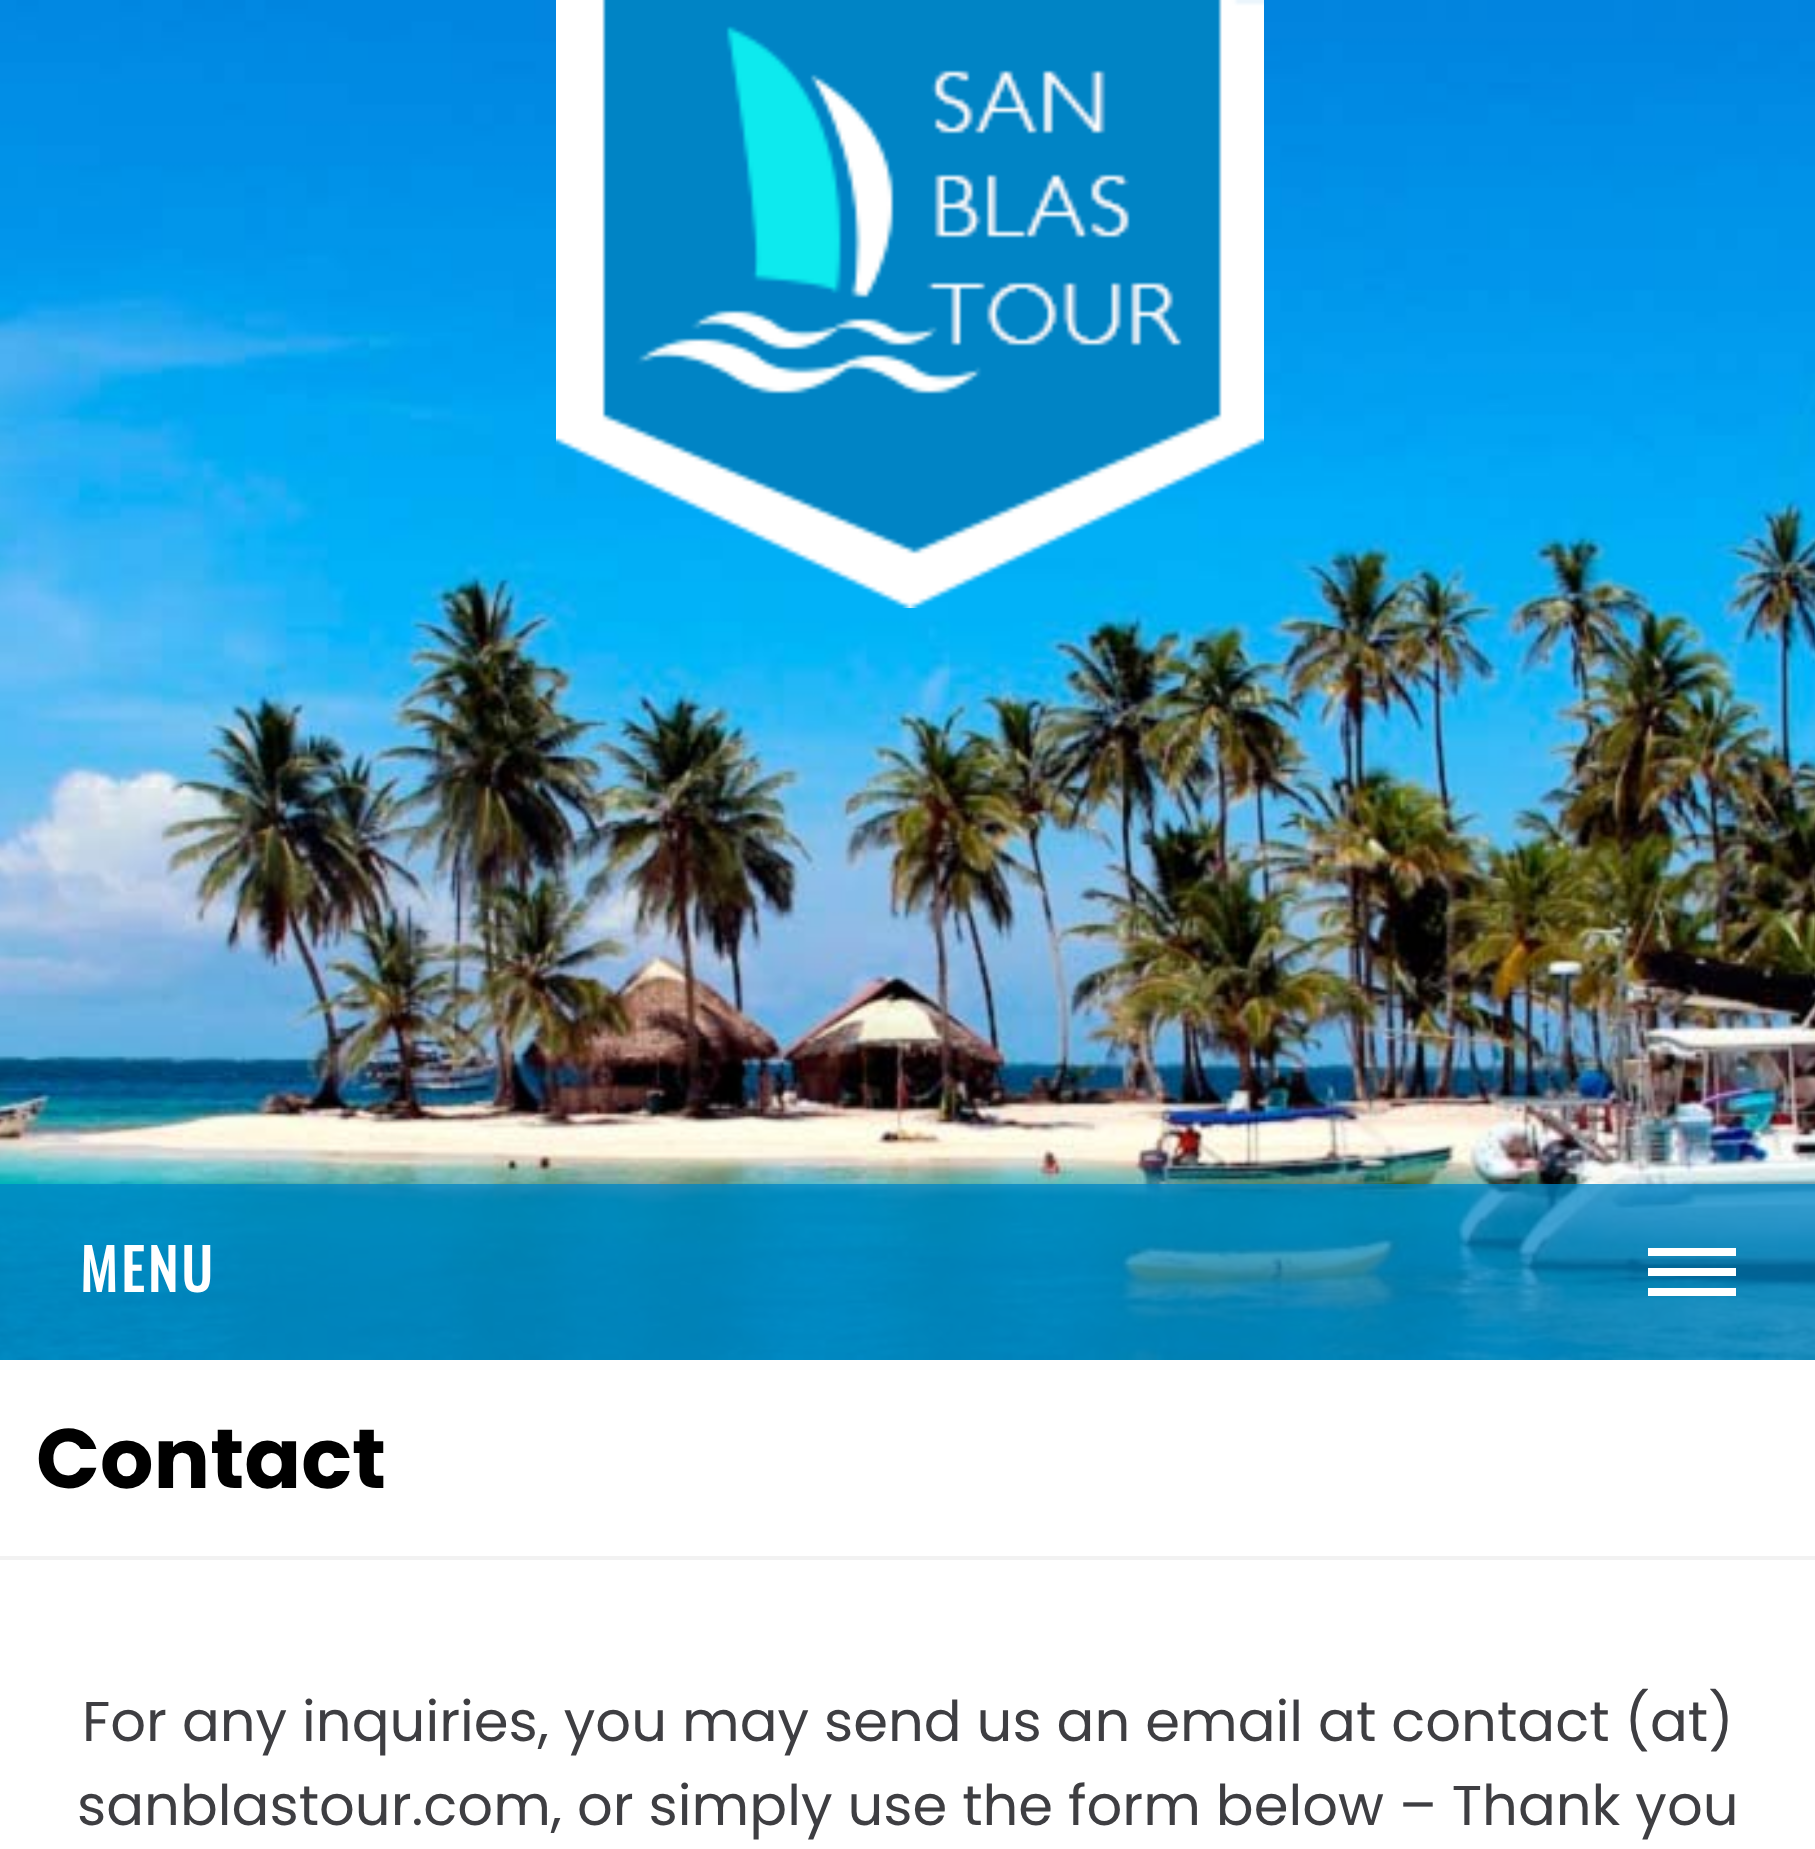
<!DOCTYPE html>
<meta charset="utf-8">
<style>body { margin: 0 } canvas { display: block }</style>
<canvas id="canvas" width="1815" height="1849"></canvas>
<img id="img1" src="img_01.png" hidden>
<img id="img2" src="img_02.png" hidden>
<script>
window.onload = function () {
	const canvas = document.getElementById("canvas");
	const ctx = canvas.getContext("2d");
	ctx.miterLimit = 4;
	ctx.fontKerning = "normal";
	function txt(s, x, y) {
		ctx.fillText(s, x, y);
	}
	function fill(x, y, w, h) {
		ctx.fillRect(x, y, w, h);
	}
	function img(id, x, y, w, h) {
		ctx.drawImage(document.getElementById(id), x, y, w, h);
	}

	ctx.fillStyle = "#FFFFFF";
	fill(0, 0, 1815, 1849);
	img("img1", 0, 0, 1815, 1360);
	img("img2", 556, 0, 708, 608);
	ctx.fillStyle = "rgba(0, 132, 198, 0.75)";
	fill(0, 1184, 1815, 176);
	ctx.fillStyle = "#FFFFFF";
	fill(1648, 1248, 88, 8);
	fill(1648, 1268, 88, 8);
	fill(1648, 1288, 88, 8);
	ctx.fillStyle = "#F2F2F2";
	fill(0, 1556, 1815, 4);
	ctx.letterSpacing = "4px";
	ctx.font = "bold 56px Oswald";
	ctx.fillStyle = "#FFFFFF";
	txt("MENU", 80, 1292);
	ctx.letterSpacing = "0px";
	ctx.font = "bold 84px Poppins";
	ctx.fillStyle = "#000000";
	txt("Contact", 36, 1488);
	ctx.font = "56px Poppins";
	ctx.fillStyle = "#3E3E42";
	txt("For any inquiries, you may send us an email at contact (at)", 82, 1741);
	txt("sanblastour.com, or simply use the form below – Thank you", 77, 1825);
};
</script>
